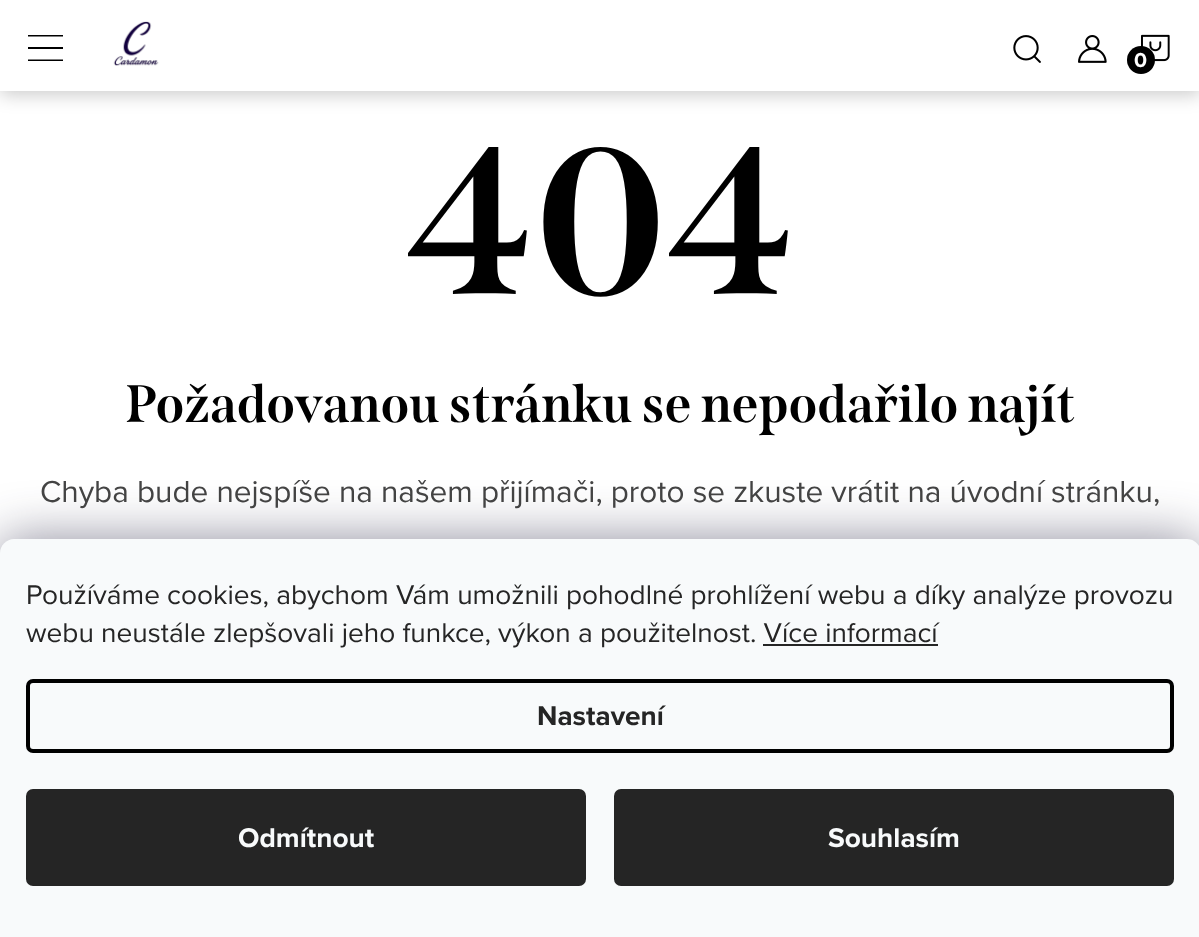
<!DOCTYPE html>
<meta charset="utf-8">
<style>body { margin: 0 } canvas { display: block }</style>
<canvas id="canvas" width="1199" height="937"></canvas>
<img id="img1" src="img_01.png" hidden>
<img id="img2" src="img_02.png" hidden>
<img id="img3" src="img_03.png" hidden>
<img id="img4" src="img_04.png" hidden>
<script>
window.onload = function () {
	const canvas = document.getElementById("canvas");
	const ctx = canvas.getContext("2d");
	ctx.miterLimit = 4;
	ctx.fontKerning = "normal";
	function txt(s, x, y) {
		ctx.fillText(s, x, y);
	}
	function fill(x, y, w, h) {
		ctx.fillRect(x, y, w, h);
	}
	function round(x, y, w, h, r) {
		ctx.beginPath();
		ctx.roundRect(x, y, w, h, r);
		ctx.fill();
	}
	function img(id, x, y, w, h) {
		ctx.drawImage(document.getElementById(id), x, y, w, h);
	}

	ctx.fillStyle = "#FFFFFF";
	fill(0, 0, 1199, 937);
	ctx.fillStyle = "rgba(0, 0, 0, 0.2)";
	ctx.filter = "blur(9px)";
	ctx.beginPath();
	ctx.rect(0, 4, 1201, 91);
	ctx.fill();
	ctx.filter = "none";
	ctx.fillStyle = "#FFFFFF";
	fill(0, 0, 1199, 91);
	ctx.fillStyle = "#000000";
	ctx.beginPath();
	ctx.moveTo(28, 35);
	ctx.lineTo(63, 35);
	ctx.lineTo(63, 36.5);
	ctx.lineTo(28, 36.5);
	ctx.closePath();
	ctx.moveTo(28, 47);
	ctx.lineTo(63, 47);
	ctx.lineTo(63, 49);
	ctx.lineTo(28, 49);
	ctx.closePath();
	ctx.moveTo(28, 59.5);
	ctx.lineTo(63, 59.5);
	ctx.lineTo(63, 61);
	ctx.lineTo(28, 61);
	ctx.closePath();
	ctx.fill();
	img("img1", 113, 21, 46, 45);
	img("img2", 1013, 35, 28, 28);
	img("img3", 1078, 35, 29, 28);
	img("img4", 1141, 34, 29, 28);
	ctx.beginPath();
	ctx.arc(1141, 60, 14, 0, Math.PI * 2);
	ctx.fill();
	ctx.fillStyle = "rgba(27, 25, 57, 0.5)";
	ctx.filter = "blur(26px)";
	ctx.beginPath();
	ctx.roundRect(0, 539, 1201, 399, 14);
	ctx.fill();
	ctx.filter = "none";
	ctx.fillStyle = "#F8FAFB";
	ctx.beginPath();
	ctx.moveTo(14, 539);
	ctx.lineTo(1187, 539);
	ctx.bezierCurveTo(1194.5, 539, 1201, 545.5, 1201, 553);
	ctx.lineTo(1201, 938);
	ctx.lineTo(0, 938);
	ctx.lineTo(0, 553);
	ctx.bezierCurveTo(0, 545.5, 6.5, 539, 14, 539);
	ctx.closePath();
	ctx.fill();
	ctx.fillStyle = "#252525";
	fill(763, 644, 175, 2);
	ctx.beginPath();
	ctx.roundRect(28, 681, 1144, 70, 5);
	ctx.strokeStyle = "#000000";
	ctx.lineWidth = 4;
	ctx.stroke();
	round(26, 789, 560, 97, 7);
	round(614, 789, 560, 97, 7);
	ctx.letterSpacing = "2px";
	ctx.font = "bold 21px Proxima Nova";
	ctx.fillStyle = "#FFFFFF";
	txt("0", 1134, 67);
	ctx.letterSpacing = "0px";
	ctx.font = "bold 210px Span";
	ctx.fillStyle = "#000000";
	txt("404", 408, 294);
	ctx.font = "bold 52.5px Span";
	txt("Požadovanou stránku se nepodařilo najít", 125, 422);
	ctx.font = "31.5px Proxima Nova";
	ctx.fillStyle = "#434343";
	txt("Chyba bude nejspíše na našem přijímači, proto se zkuste vrátit na úvodní stránku,", 40, 502);
	ctx.font = "28px Proxima Nova";
	ctx.fillStyle = "#252525";
	txt("Používáme cookies, abychom Vám umožnili pohodlné prohlížení webu a díky analýze provozu", 26, 604);
	txt("webu neustále zlepšovali jeho funkce, výkon a použitelnost. Více informací", 26, 642);
	ctx.font = "bold 28px Proxima Nova";
	txt("Nastavení", 537, 725);
	ctx.fillStyle = "#F8FAFB";
	txt("Odmítnout", 238, 847);
	txt("Souhlasím", 828, 847);
};
</script>
